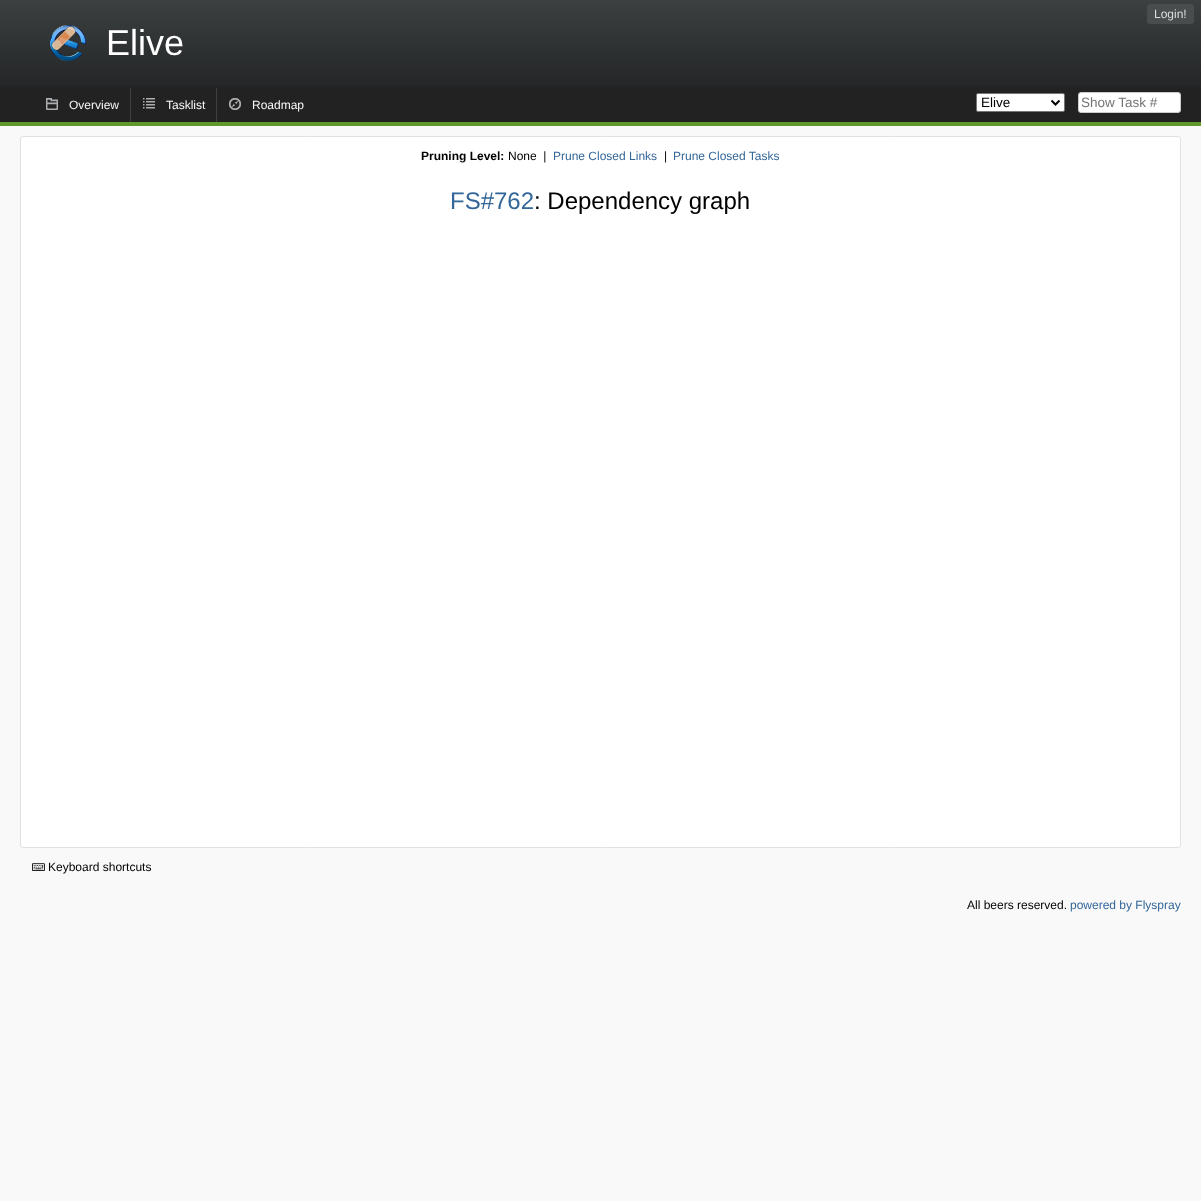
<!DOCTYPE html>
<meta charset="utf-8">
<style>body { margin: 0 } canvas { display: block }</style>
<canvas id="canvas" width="1201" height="1201"></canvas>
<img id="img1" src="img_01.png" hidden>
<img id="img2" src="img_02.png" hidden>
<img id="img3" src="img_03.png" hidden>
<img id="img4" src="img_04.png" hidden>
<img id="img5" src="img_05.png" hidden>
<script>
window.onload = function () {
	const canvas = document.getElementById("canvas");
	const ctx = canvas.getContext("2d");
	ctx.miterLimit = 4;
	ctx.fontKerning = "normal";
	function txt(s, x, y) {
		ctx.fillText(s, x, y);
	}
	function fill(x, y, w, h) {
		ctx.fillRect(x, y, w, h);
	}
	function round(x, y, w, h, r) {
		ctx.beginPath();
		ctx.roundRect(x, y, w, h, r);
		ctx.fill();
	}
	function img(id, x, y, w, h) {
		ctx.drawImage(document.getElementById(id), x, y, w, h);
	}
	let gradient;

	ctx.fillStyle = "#F9F9F9";
	fill(0, 0, 1201, 1201);
	gradient = ctx.createLinearGradient(601, 0, 601, 86);
	gradient.addColorStop(0, "#3C4041");
	gradient.addColorStop(1, "#242627");
	ctx.fillStyle = gradient;
	fill(0, 0, 1201, 86);
	ctx.fillStyle = "#494D4E";
	round(1147, 4, 47, 20, 3);
	img("img1", 50, 25, 36, 36);
	ctx.fillStyle = "#222222";
	fill(0, 86, 1201, 36);
	ctx.fillStyle = "#5F9729";
	fill(0, 122, 1201, 4);
	img("img2", 46, 98, 12, 12);
	img("img3", 143, 98, 12, 11);
	ctx.fillStyle = "#3C4041";
	fill(130, 88, 1, 34);
	img("img4", 229, 98, 12, 12);
	fill(216, 88, 1, 34);
	ctx.fillStyle = "#FFFFFF";
	ctx.beginPath();
	ctx.roundRect(976.5, 93.5, 88, 18, 1.5);
	ctx.fill();
	ctx.strokeStyle = "#767676";
	ctx.stroke();
	ctx.beginPath();
	ctx.moveTo(1051.5, 100.5);
	ctx.lineTo(1055.5, 104.5);
	ctx.lineTo(1059.5, 100.5);
	ctx.strokeStyle = "#000000";
	ctx.lineWidth = 2;
	ctx.stroke();
	ctx.beginPath();
	ctx.roundRect(1078.5, 92.5, 102, 20, 2.5);
	ctx.fill();
	ctx.strokeStyle = "#CCCCCC";
	ctx.lineWidth = 1;
	ctx.stroke();
	ctx.beginPath();
	ctx.roundRect(20.5, 136.5, 1160, 711, 2.5);
	ctx.fill();
	ctx.strokeStyle = "#E1E1E1";
	ctx.stroke();
	img("img5", 32, 863, 13, 8);
	ctx.font = "12px Liberation Sans";
	ctx.fillStyle = "#DDDDDD";
	txt("Login!", 1154, 18);
	ctx.font = "36px Liberation Sans";
	ctx.fillStyle = "#FFFFFF";
	txt("Elive", 106, 55);
	ctx.font = "12px Liberation Sans";
	ctx.fillStyle = "#F9F9F9";
	txt("Overview", 69, 109);
	txt("Tasklist", 166, 109);
	txt("Roadmap", 252, 109);
	ctx.font = "13.5px Liberation Sans";
	ctx.fillStyle = "#000000";
	txt("Elive", 981, 107);
	ctx.fillStyle = "#757575";
	txt("Show Task #", 1081, 107);
	ctx.font = "bold 12px Liberation Sans";
	ctx.fillStyle = "#000000";
	txt("Pruning Level:", 421, 160);
	ctx.font = "12px Liberation Sans";
	txt("None  |", 508, 160);
	ctx.fillStyle = "#336699";
	txt("Prune Closed Links", 553, 160);
	ctx.fillStyle = "#000000";
	txt("|", 664, 160);
	ctx.fillStyle = "#336699";
	txt("Prune Closed Tasks", 673, 160);
	ctx.font = "24px Liberation Sans";
	txt("FS#762", 450, 209);
	ctx.fillStyle = "#000000";
	txt(": Dependency graph", 534, 209);
	ctx.font = "12px Liberation Sans";
	txt("Keyboard shortcuts", 48, 871);
	txt("All beers reserved.", 967, 909);
	ctx.fillStyle = "#336699";
	txt("powered by Flyspray", 1070, 909);
};
</script>
